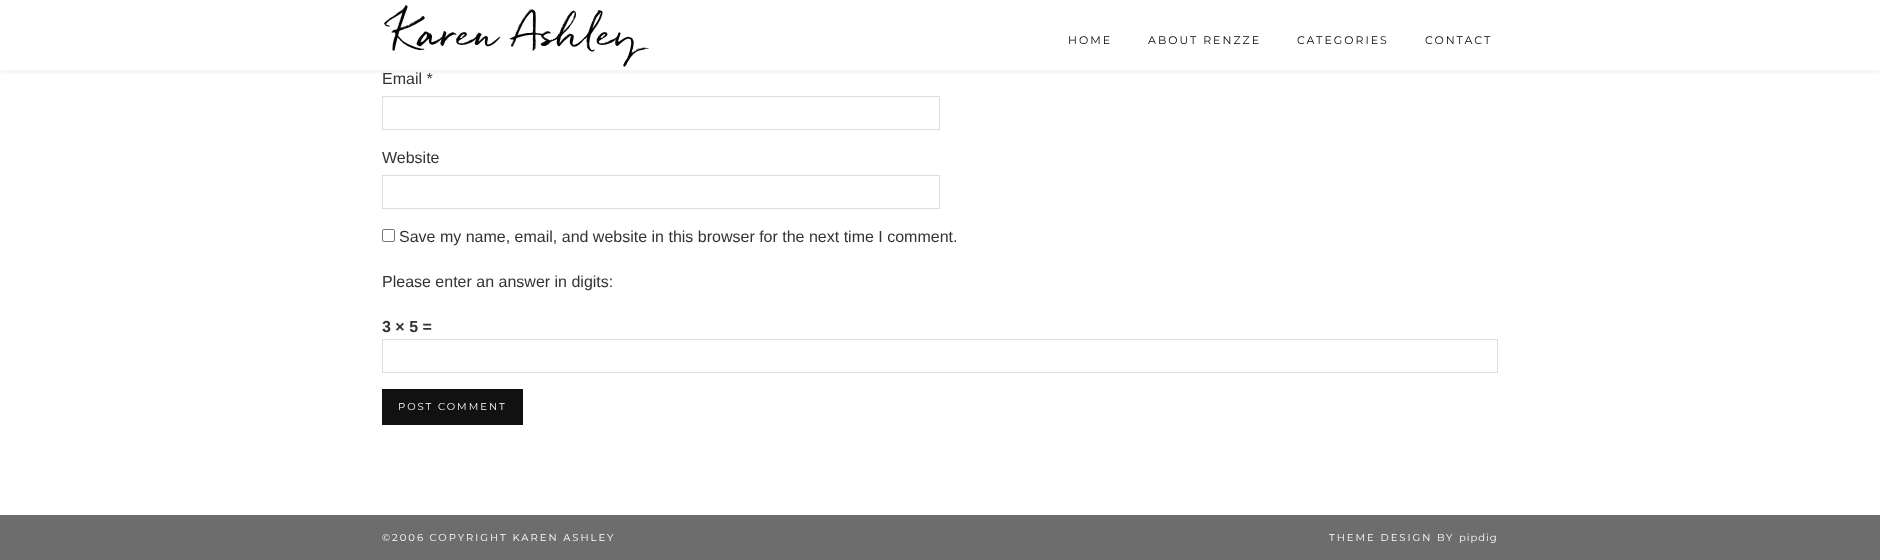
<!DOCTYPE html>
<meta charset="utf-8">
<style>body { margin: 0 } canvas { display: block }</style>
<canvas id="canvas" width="1880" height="560"></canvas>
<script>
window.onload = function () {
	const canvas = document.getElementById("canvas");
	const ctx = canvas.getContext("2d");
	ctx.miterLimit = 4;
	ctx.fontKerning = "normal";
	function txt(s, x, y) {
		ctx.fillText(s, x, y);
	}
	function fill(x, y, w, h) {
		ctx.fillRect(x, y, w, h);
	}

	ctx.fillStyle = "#FFFFFF";
	fill(0, 0, 1880, 560);
	ctx.save();
	ctx.beginPath();
	ctx.rect(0, 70, 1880, 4);
	ctx.clip();
	ctx.fillStyle = "rgba(0, 0, 0, 0.08)";
	ctx.filter = "blur(4px)";
	ctx.beginPath();
	ctx.rect(0, 1, 1880, 70);
	ctx.fill();
	ctx.filter = "none";
	ctx.restore();
	ctx.strokeStyle = "#DDDDDD";
	ctx.strokeRect(382.5, 96.5, 557, 33);
	ctx.strokeRect(382.5, 175.5, 557, 33);
	ctx.beginPath();
	ctx.roundRect(382.5, 229.5, 12, 12, 1.5);
	ctx.strokeStyle = "#767676";
	ctx.stroke();
	ctx.strokeStyle = "#DDDDDD";
	ctx.strokeRect(382.5, 339.5, 1115, 33);
	ctx.fillStyle = "#111111";
	fill(382, 389, 141, 36);
	ctx.fillStyle = "#6D6D6D";
	fill(0, 515, 1880, 45);
	ctx.font = "40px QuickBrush";
	ctx.fillStyle = "#050505";
	txt("Karen Ashley", 392, 45);
	ctx.letterSpacing = "2px";
	ctx.font = "100 11px Montserrat";
	txt("HOME", 1068, 44);
	txt("ABOUT RENZZE", 1148, 44);
	txt("CATEGORIES", 1297, 44);
	txt("CONTACT", 1425, 44);
	ctx.letterSpacing = "0px";
	ctx.font = "16px Liberation Sans";
	ctx.fillStyle = "#333333";
	txt("Email *", 382, 84);
	txt("Website", 382, 163);
	txt("Save my name, email, and website in this browser for the next time I comment.", 399, 242);
	txt("Please enter an answer in digits:", 382, 287);
	ctx.font = "bold 16px Liberation Sans";
	txt("3 × 5 =", 382, 332);
	ctx.letterSpacing = "2px";
	ctx.font = "100 10px Montserrat";
	ctx.fillStyle = "#FFFFFF";
	txt("POST COMMENT", 398, 410);
	txt("©2006 COPYRIGHT KAREN ASHLEY", 382, 541);
	txt("THEME DESIGN BY", 1329, 541);
	ctx.letterSpacing = "1px";
	txt("pipdig", 1459, 541);
};
</script>
